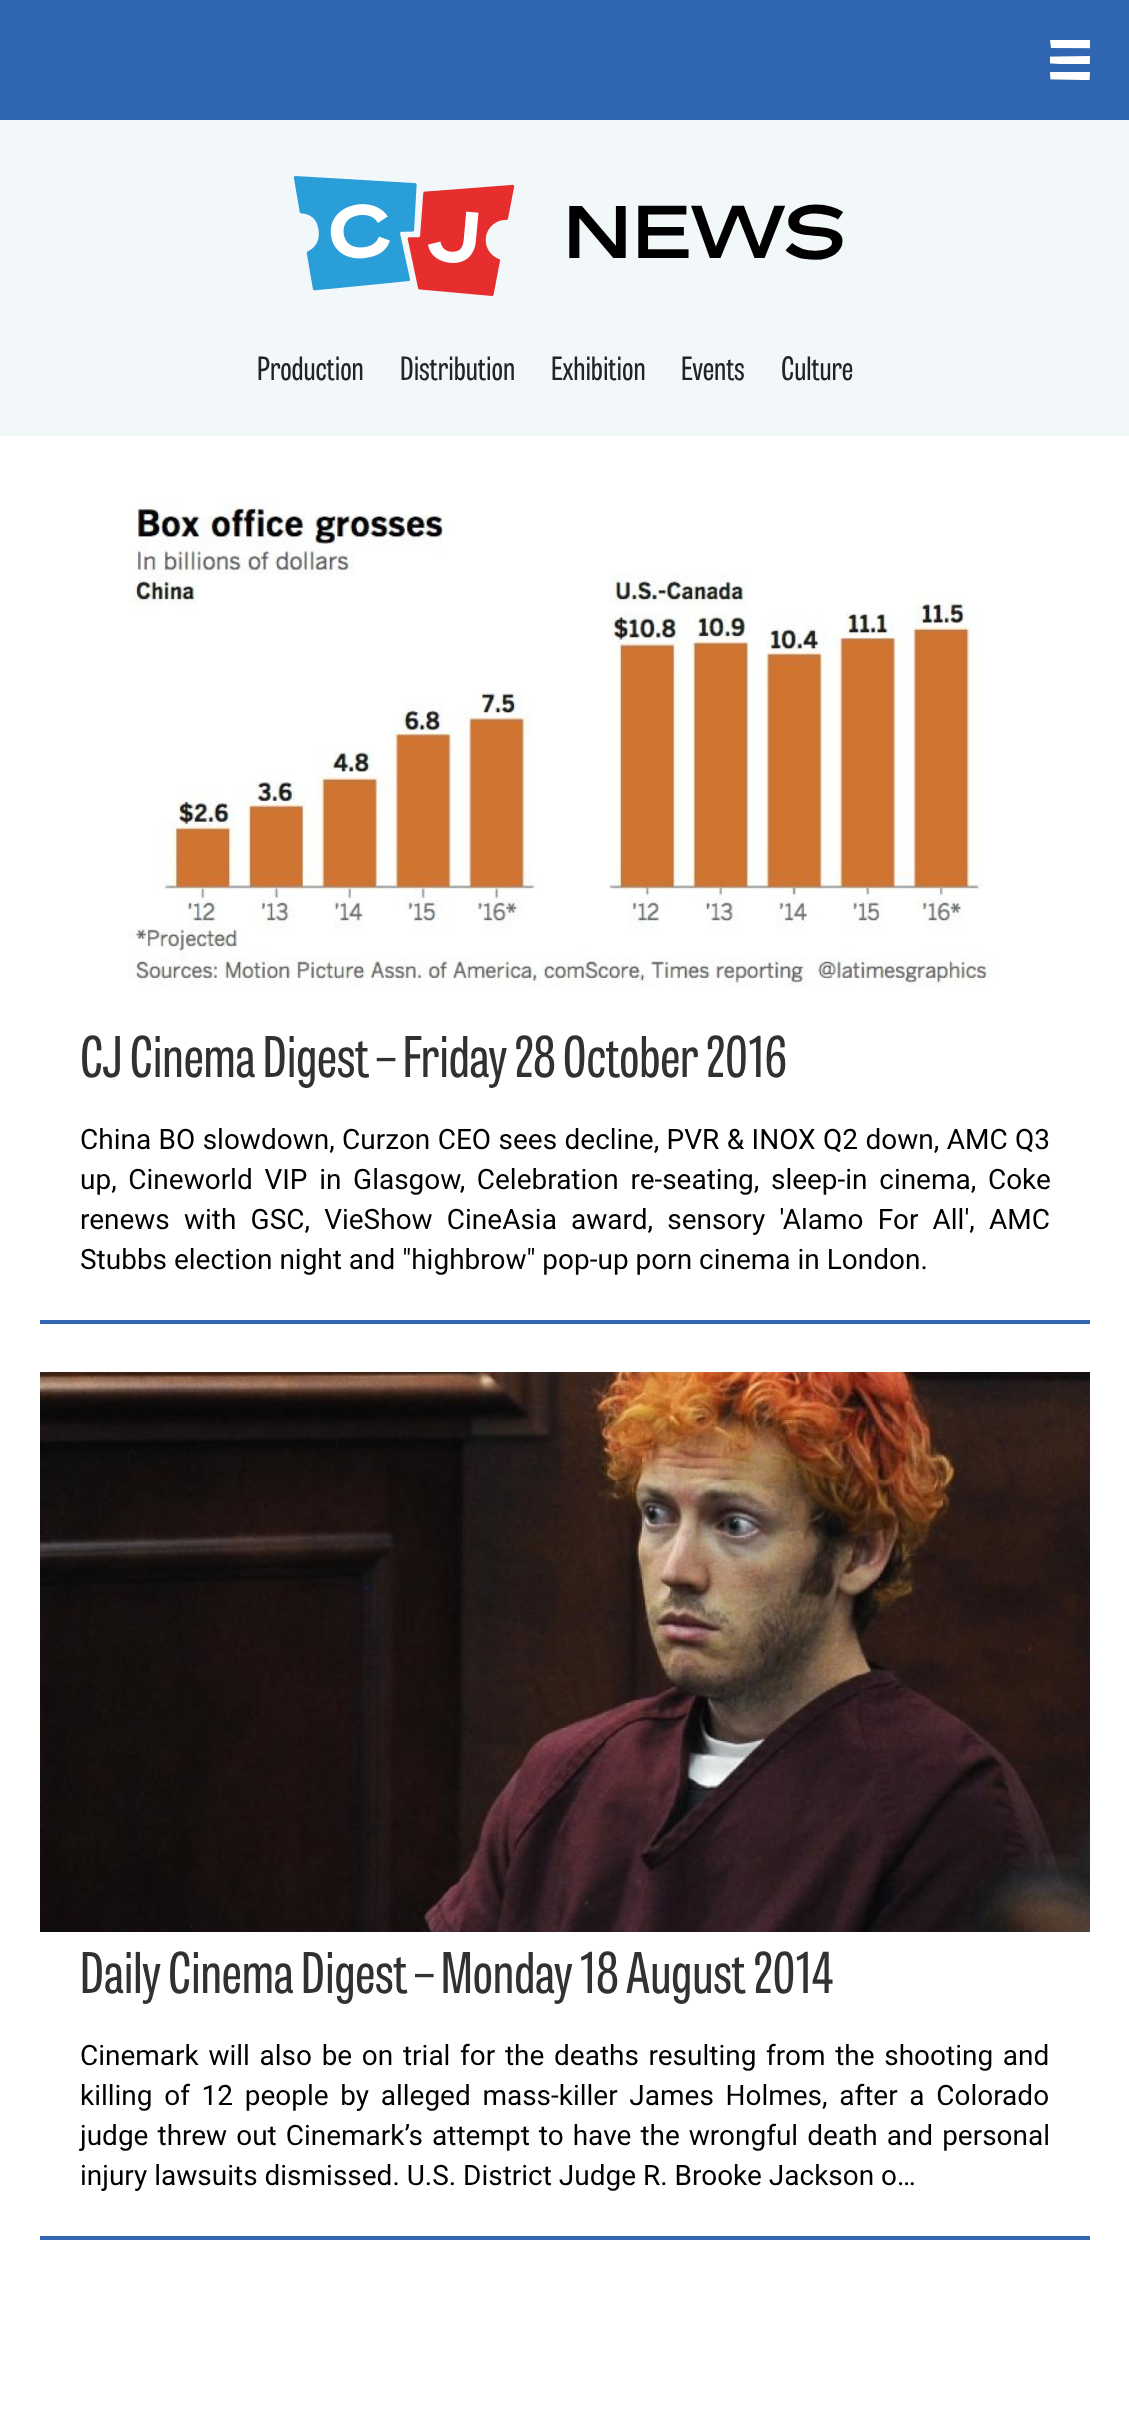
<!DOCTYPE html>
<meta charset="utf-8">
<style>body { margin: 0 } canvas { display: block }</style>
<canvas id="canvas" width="1129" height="2414"></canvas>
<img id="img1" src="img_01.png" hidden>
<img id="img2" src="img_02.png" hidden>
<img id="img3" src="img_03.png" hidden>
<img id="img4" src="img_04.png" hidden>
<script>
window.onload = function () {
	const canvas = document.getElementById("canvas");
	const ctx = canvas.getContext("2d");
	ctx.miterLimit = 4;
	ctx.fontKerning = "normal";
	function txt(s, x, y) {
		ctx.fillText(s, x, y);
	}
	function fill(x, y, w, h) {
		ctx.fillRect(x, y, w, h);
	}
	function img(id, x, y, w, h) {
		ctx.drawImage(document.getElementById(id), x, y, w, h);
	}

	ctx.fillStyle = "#FFFFFF";
	fill(0, 0, 1129, 2414);
	ctx.fillStyle = "#3066B2";
	fill(0, 0, 1129, 120);
	img("img1", 1050, 40, 40, 40);
	ctx.fillStyle = "#F2F8F9";
	fill(0, 120, 1129, 316);
	img("img2", 293, 176, 222, 120);
	img("img3", 128, 496, 865, 492);
	ctx.fillStyle = "#3267B0";
	fill(40, 1320, 1050, 4);
	img("img4", 40, 1372, 1050, 560);
	fill(40, 2236, 1050, 4);
	ctx.font = "74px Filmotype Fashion";
	ctx.fillStyle = "#000000";
	txt("NEWS", 563, 258);
	ctx.font = "32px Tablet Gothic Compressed";
	ctx.fillStyle = "#202426";
	txt("Production", 257, 380);
	txt("Distribution", 400, 380);
	txt("Exhibition", 551, 380);
	txt("Events", 681, 380);
	txt("Culture", 781, 380);
	ctx.font = "56px Tablet Gothic Compressed";
	ctx.fillStyle = "#313131";
	txt("CJ Cinema Digest – Friday 28 October 2016", 80, 1077);
	ctx.wordSpacing = "0.5px";
	ctx.font = "28px Roboto";
	ctx.fillStyle = "#000000";
	txt("China BO slowdown, Curzon CEO sees decline, PVR & INOX Q2 down, AMC Q3", 80, 1149);
	ctx.wordSpacing = "4.75px";
	txt("up, Cineworld VIP in Glasgow, Celebration re-seating, sleep-in cinema, Coke", 80, 1189);
	ctx.wordSpacing = "7.25px";
	txt("renews with GSC, VieShow CineAsia award, sensory 'Alamo For All', AMC", 80, 1229);
	ctx.wordSpacing = "0px";
	txt("Stubbs election night and \"highbrow\" pop-up porn cinema in London.", 80, 1269);
	ctx.font = "56px Tablet Gothic Compressed";
	ctx.fillStyle = "#313131";
	txt("Daily Cinema Digest – Monday 18 August 2014", 80, 1993);
	ctx.wordSpacing = "2.75px";
	ctx.font = "28px Roboto";
	ctx.fillStyle = "#000000";
	txt("Cinemark will also be on trial for the deaths resulting from the shooting and", 80, 2065);
	ctx.wordSpacing = "4.75px";
	txt("killing of 12 people by alleged mass-killer James Holmes, after a Colorado", 80, 2105);
	ctx.wordSpacing = "2.1px";
	txt("judge threw out Cinemark’s attempt to have the wrongful death and personal", 80, 2145);
	ctx.wordSpacing = "0px";
	txt("injury lawsuits dismissed. U.S. District Judge R. Brooke Jackson o…", 80, 2185);
};
</script>
